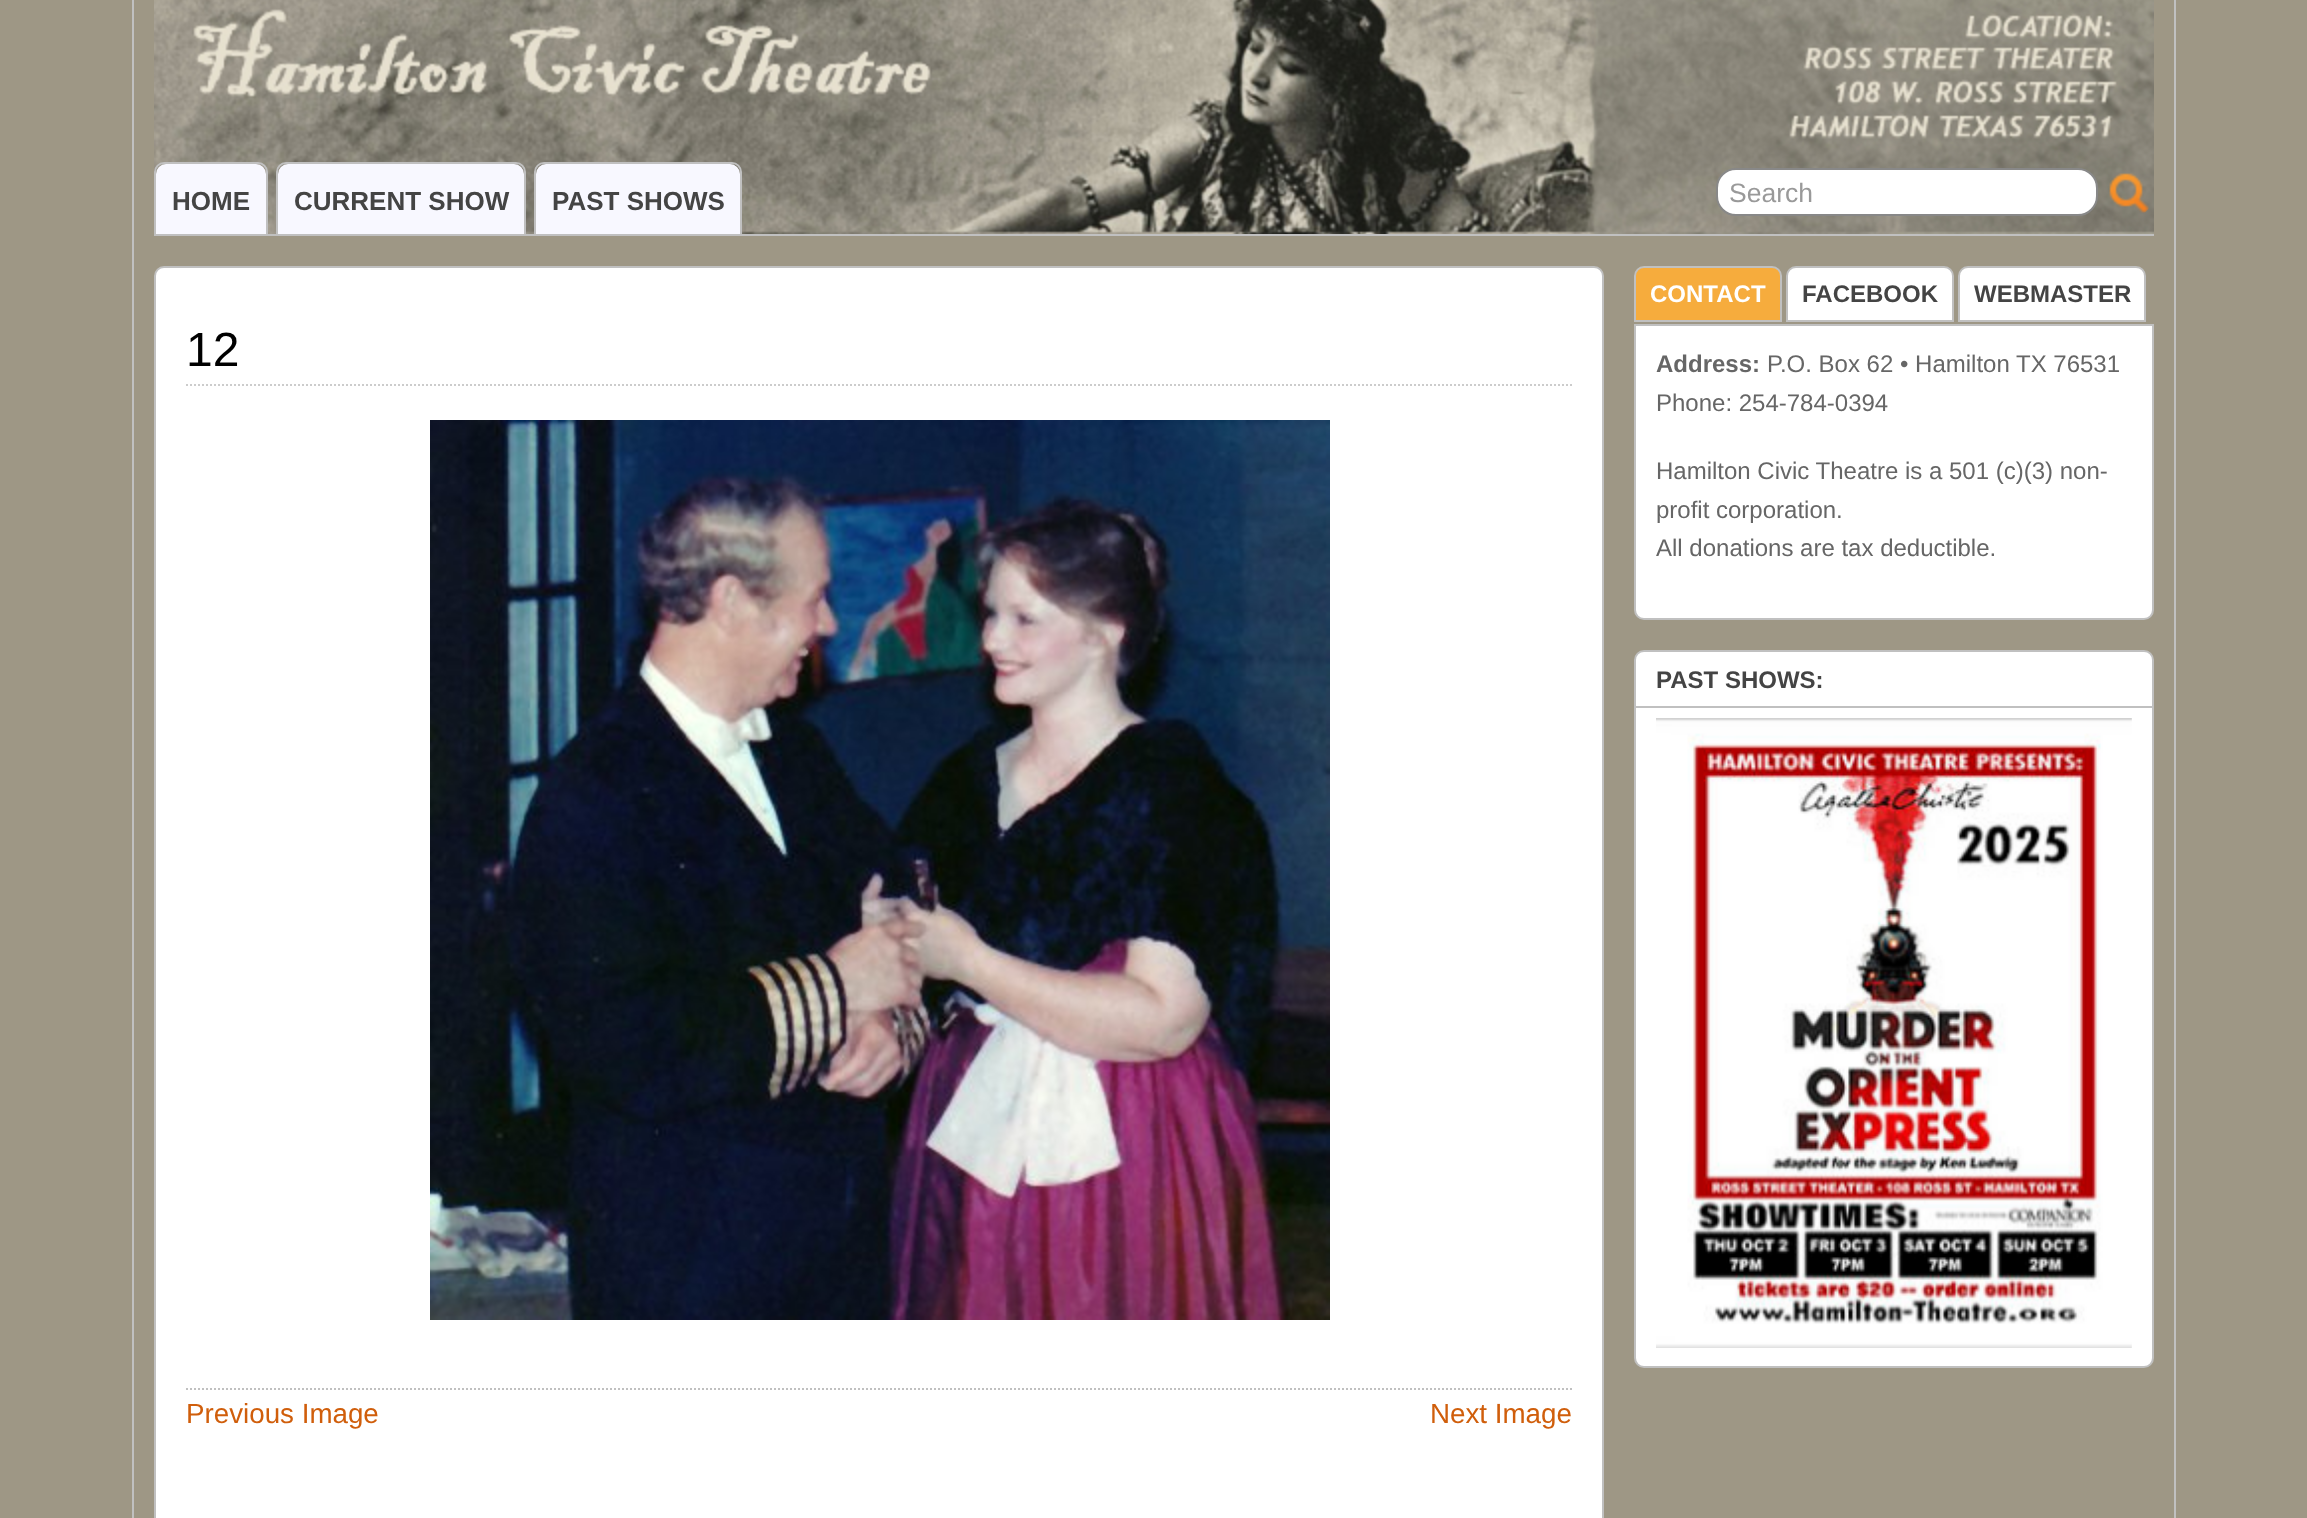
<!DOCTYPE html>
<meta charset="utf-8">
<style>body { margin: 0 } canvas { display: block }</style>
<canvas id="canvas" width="2307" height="1518"></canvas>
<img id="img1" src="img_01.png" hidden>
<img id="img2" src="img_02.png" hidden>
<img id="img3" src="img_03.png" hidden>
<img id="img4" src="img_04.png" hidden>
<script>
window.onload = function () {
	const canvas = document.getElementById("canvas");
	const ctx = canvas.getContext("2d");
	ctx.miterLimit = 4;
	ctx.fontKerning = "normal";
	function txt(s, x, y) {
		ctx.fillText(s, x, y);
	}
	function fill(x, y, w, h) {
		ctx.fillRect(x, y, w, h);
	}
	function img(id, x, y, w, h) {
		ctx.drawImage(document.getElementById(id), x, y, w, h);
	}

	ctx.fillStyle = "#9E9785";
	fill(0, 0, 2307, 1518);
	ctx.strokeStyle = "#C0C0C0";
	ctx.lineWidth = 2;
	ctx.strokeRect(133, -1, 2042, 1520);
	img("img1", 154, 0, 2000, 234);
	ctx.fillStyle = "#C0C0C0";
	fill(268, 234, 1886, 2);
	ctx.beginPath();
	ctx.roundRect(155, 163, 112, 72, [9, 9, 0, 0]);
	ctx.stroke();
	ctx.fillStyle = "#F8F8FF";
	ctx.beginPath();
	ctx.roundRect(156, 164, 110, 70, [10, 10, 0, 0]);
	ctx.fill();
	ctx.beginPath();
	ctx.roundRect(277, 163, 248, 72, [9, 9, 0, 0]);
	ctx.stroke();
	ctx.beginPath();
	ctx.roundRect(278, 164, 246, 70, [10, 10, 0, 0]);
	ctx.fill();
	ctx.beginPath();
	ctx.roundRect(535, 163, 206, 72, [9, 9, 0, 0]);
	ctx.stroke();
	ctx.beginPath();
	ctx.roundRect(536, 164, 204, 70, [10, 10, 0, 0]);
	ctx.fill();
	ctx.fillStyle = "#FFFFFF";
	ctx.beginPath();
	ctx.roundRect(1717, 169, 380, 46, 19);
	ctx.fill();
	ctx.strokeStyle = "#888888";
	ctx.stroke();
	img("img2", 2109, 173, 40, 40);
	ctx.beginPath();
	ctx.roundRect(155, 267, 1448, 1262, 9);
	ctx.fill();
	ctx.strokeStyle = "#C0C0C0";
	ctx.stroke();
	ctx.beginPath();
	ctx.moveTo(186, 385);
	ctx.lineTo(1572, 385);
	ctx.strokeStyle = "#CCCCCC";
	ctx.setLineDash([2, 2]);
	ctx.stroke();
	img("img3", 430, 420, 900, 900);
	ctx.beginPath();
	ctx.moveTo(186, 1389);
	ctx.lineTo(1572, 1389);
	ctx.strokeStyle = "#C0C0C0";
	ctx.stroke();
	ctx.fillStyle = "#F6AC3D";
	ctx.beginPath();
	ctx.roundRect(1635, 267, 146, 54, [9, 9, 0, 0]);
	ctx.fill();
	ctx.setLineDash([]);
	ctx.stroke();
	ctx.fillStyle = "#FFFFFF";
	ctx.beginPath();
	ctx.roundRect(1787, 267, 166, 54, [9, 9, 0, 0]);
	ctx.fill();
	ctx.stroke();
	ctx.beginPath();
	ctx.roundRect(1959, 267, 186, 54, [9, 9, 0, 0]);
	ctx.fill();
	ctx.stroke();
	ctx.beginPath();
	ctx.roundRect(1635, 325, 518, 294, [0, 0, 9, 9]);
	ctx.fill();
	ctx.stroke();
	ctx.beginPath();
	ctx.roundRect(1635, 651, 518, 716, 9);
	ctx.fill();
	ctx.stroke();
	ctx.fillStyle = "#C0C0C0";
	fill(1636, 706, 516, 2);
	img("img4", 1656, 718, 476, 630);
	ctx.font = "bold 26px Liberation Sans";
	ctx.fillStyle = "#444444";
	txt("HOME", 172, 210);
	txt("CURRENT SHOW", 294, 210);
	txt("PAST SHOWS", 552, 210);
	ctx.font = "26.5px Liberation Sans";
	ctx.fillStyle = "#999999";
	txt("Search", 1729, 202);
	ctx.font = "48px Liberation Sans";
	ctx.fillStyle = "#000000";
	txt("12", 186, 366);
	ctx.font = "27.75px Liberation Sans";
	ctx.fillStyle = "#D05E0B";
	txt("Previous Image", 186, 1423);
	txt("Next Image", 1430, 1423);
	ctx.font = "bold 24px Liberation Sans";
	ctx.fillStyle = "#FFFFFF";
	txt("CONTACT", 1650, 302);
	ctx.fillStyle = "#444444";
	txt("FACEBOOK", 1802, 302);
	txt("WEBMASTER", 1974, 302);
	ctx.fillStyle = "#666666";
	txt("Address:", 1656, 372);
	ctx.font = "24px Liberation Sans";
	txt("P.O. Box 62 • Hamilton TX 76531", 1767, 372);
	txt("Phone: 254-784-0394", 1656, 411);
	txt("Hamilton Civic Theatre is a 501 (c)(3) non-", 1656, 479);
	txt("profit corporation.", 1656, 518);
	txt("All donations are tax deductible.", 1656, 556);
	ctx.font = "bold 24px Liberation Sans";
	ctx.fillStyle = "#444444";
	txt("PAST SHOWS:", 1656, 688);
};
</script>
